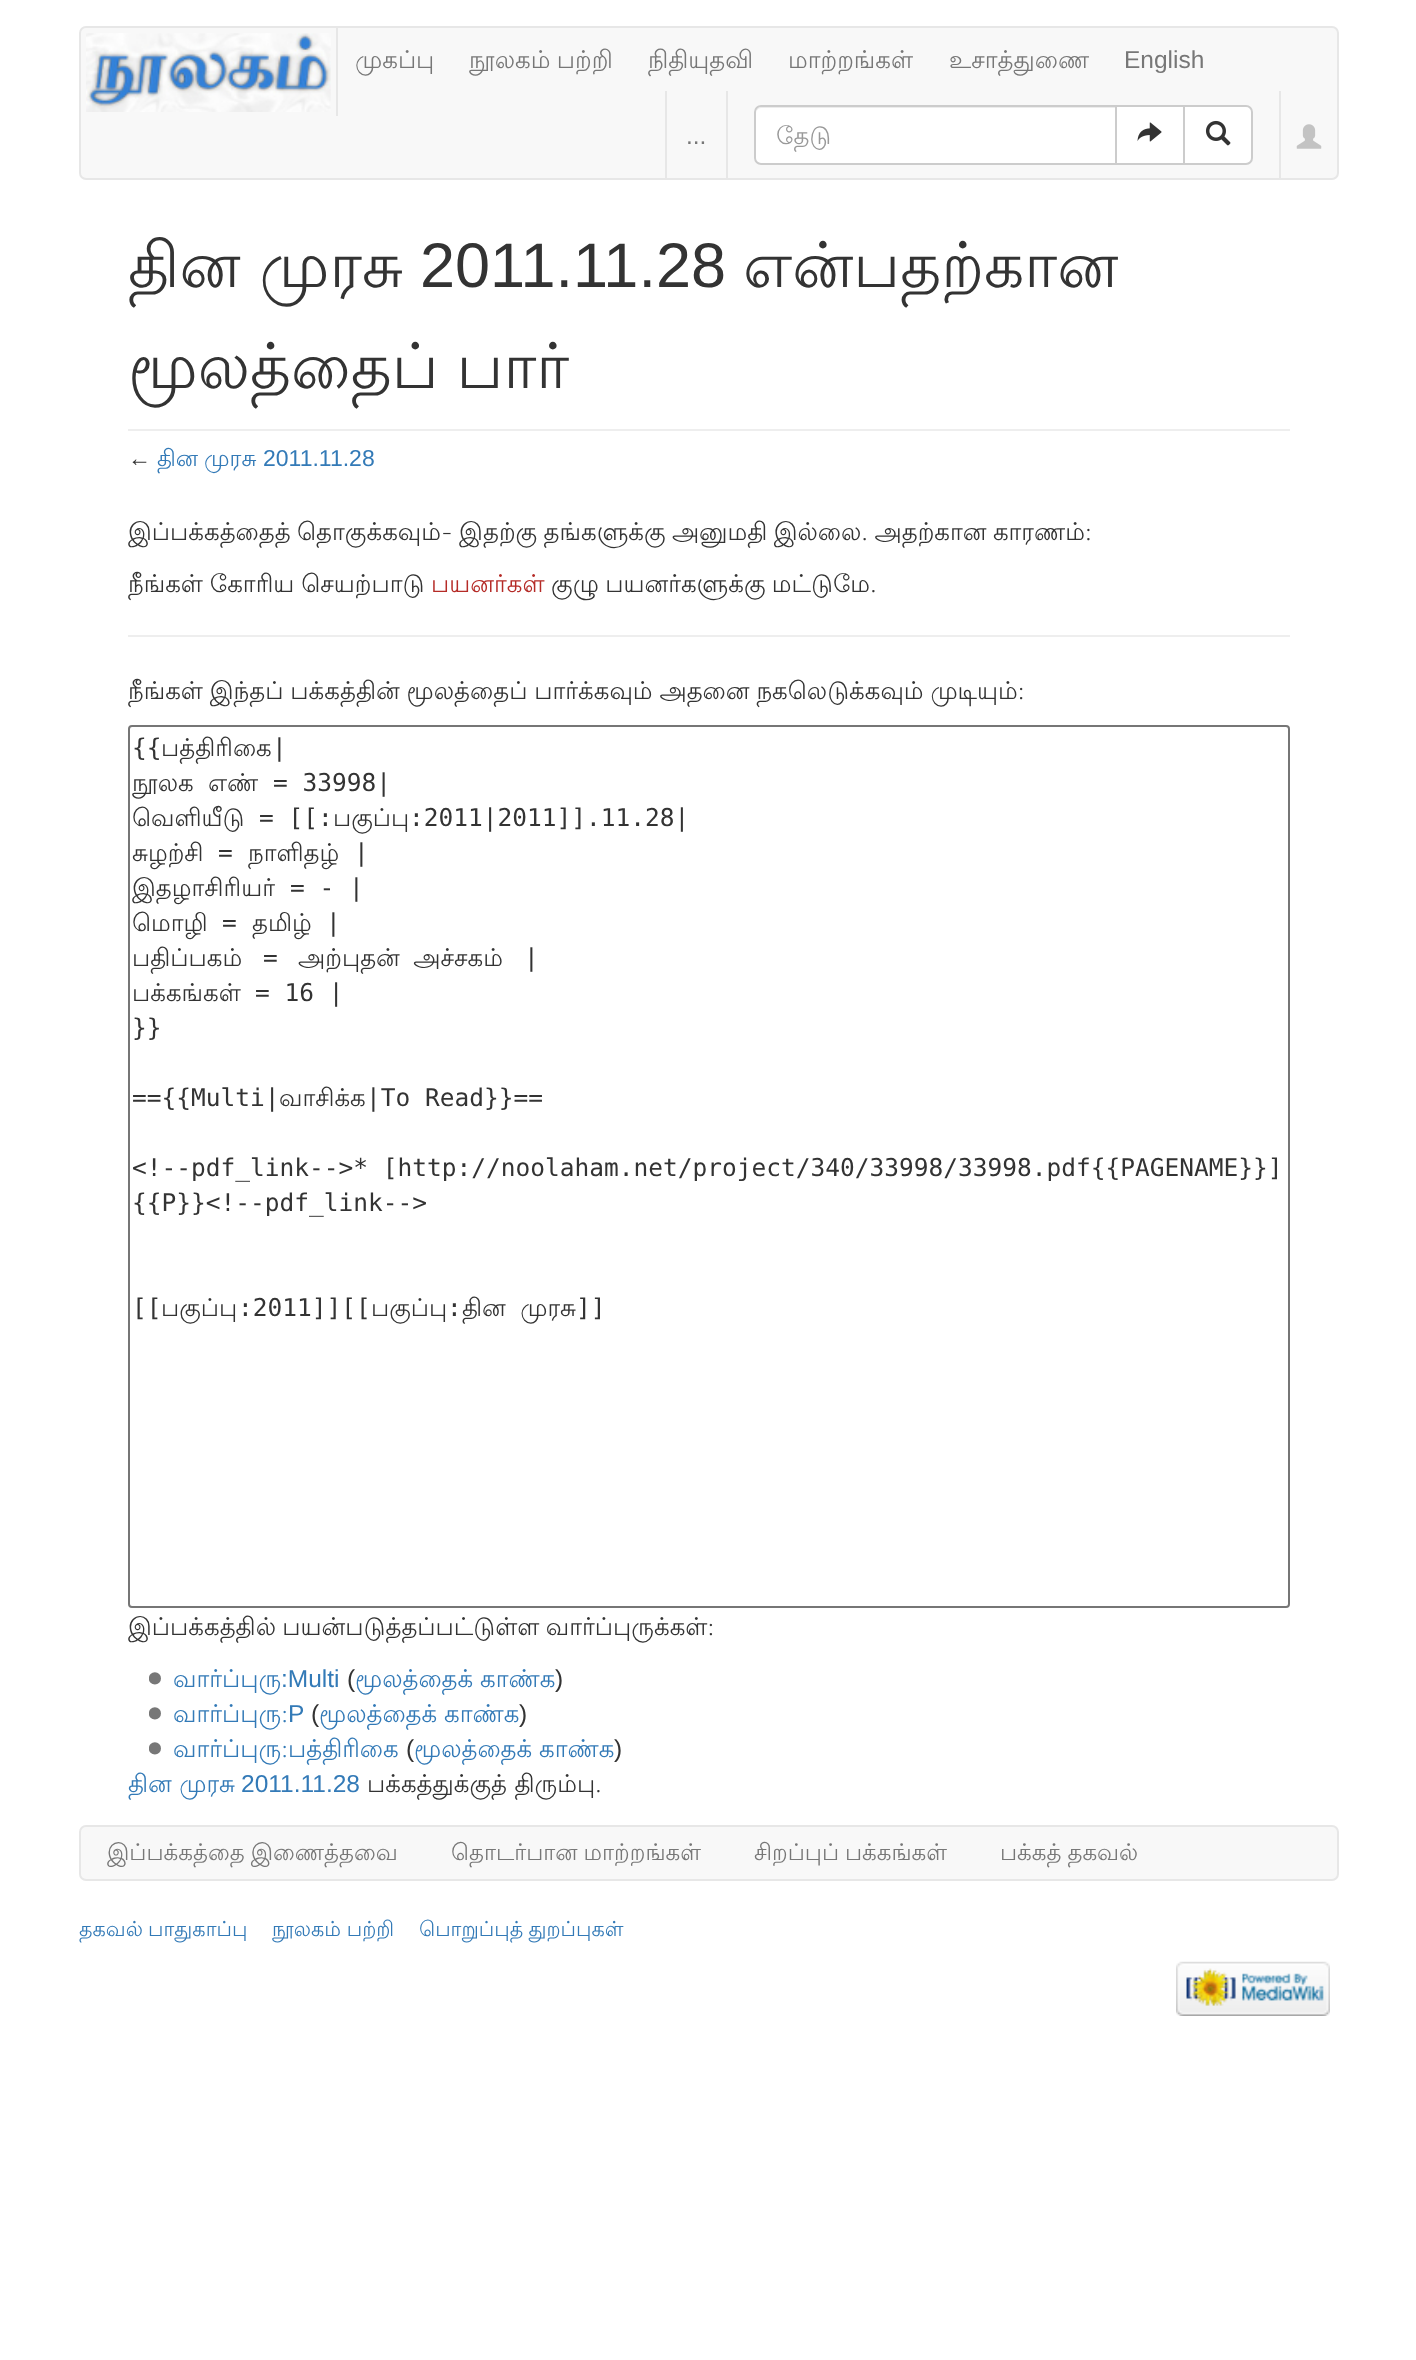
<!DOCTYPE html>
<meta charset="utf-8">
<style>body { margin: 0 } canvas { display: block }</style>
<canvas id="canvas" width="1416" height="2360"></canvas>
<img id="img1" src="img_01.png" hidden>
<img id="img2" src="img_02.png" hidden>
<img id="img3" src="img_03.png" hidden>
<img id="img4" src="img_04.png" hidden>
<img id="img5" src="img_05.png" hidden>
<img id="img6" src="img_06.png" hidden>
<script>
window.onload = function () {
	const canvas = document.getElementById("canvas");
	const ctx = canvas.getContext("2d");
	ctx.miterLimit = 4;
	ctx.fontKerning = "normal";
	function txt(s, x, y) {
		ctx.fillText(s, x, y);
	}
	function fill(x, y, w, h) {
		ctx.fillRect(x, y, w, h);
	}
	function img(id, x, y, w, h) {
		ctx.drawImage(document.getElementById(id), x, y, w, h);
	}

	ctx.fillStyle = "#FFFFFF";
	fill(0, 0, 1416, 2360);
	ctx.fillStyle = "#F8F8F8";
	ctx.beginPath();
	ctx.roundRect(80, 27, 1258, 152, 6);
	ctx.fill();
	ctx.strokeStyle = "#E7E7E7";
	ctx.lineWidth = 2;
	ctx.stroke();
	ctx.fillStyle = "#E7E7E7";
	fill(336, 28, 2, 88);
	img("img1", 86, 33, 245, 79);
	fill(726, 91, 2, 88);
	fill(665, 91, 2, 88);
	fill(1279, 91, 2, 88);
	ctx.fillStyle = "#FFFFFF";
	ctx.beginPath();
	ctx.roundRect(754, 105, 363, 60, [7, 0, 0, 7]);
	ctx.fill();
	ctx.fillStyle = "#ECECEC";
	ctx.beginPath();
	ctx.moveTo(761, 108);
	ctx.lineTo(1115, 108);
	ctx.lineTo(1115, 107);
	ctx.lineTo(761, 107);
	ctx.bezierCurveTo(757, 107, 756, 111, 756, 114);
	ctx.bezierCurveTo(756, 111, 758, 108, 761, 108);
	ctx.closePath();
	ctx.fill();
	ctx.beginPath();
	ctx.roundRect(755, 106, 361, 58, [6, 0, 0, 6]);
	ctx.strokeStyle = "#CCCCCC";
	ctx.stroke();
	ctx.fillStyle = "#FFFFFF";
	ctx.beginPath();
	ctx.rect(1116, 106, 68, 58);
	ctx.fill();
	ctx.stroke();
	img("img2", 1137, 122, 25, 20);
	ctx.beginPath();
	ctx.roundRect(1184, 106, 68, 58, [0, 6, 6, 0]);
	ctx.fill();
	ctx.stroke();
	img("img3", 1205, 120, 26, 26);
	img("img4", 1296, 124, 26, 25);
	ctx.fillStyle = "#EEEEEE";
	fill(128, 429, 1162, 2);
	fill(128, 635, 1162, 2);
	ctx.beginPath();
	ctx.roundRect(129, 726, 1160, 881, 3);
	ctx.strokeStyle = "#767676";
	ctx.stroke();
	img("img5", 149, 1672, 12, 13);
	img("img5", 149, 1707, 12, 13);
	img("img5", 149, 1742, 12, 13);
	ctx.fillStyle = "#F8F8F8";
	ctx.beginPath();
	ctx.roundRect(80, 1826, 1258, 54, 6);
	ctx.fill();
	ctx.strokeStyle = "#E7E7E7";
	ctx.stroke();
	img("img6", 1176, 1961, 154, 55);
	ctx.font = "24.5px Lohit Tamil";
	ctx.fillStyle = "#777777";
	txt("முகப்பு", 355, 68);
	ctx.wordSpacing = "-1px";
	txt("நூலகம் பற்றி", 469, 68);
	ctx.wordSpacing = "0px";
	txt("நிதியுதவி", 648, 68);
	txt("மாற்றங்கள்", 788, 68);
	txt("உசாத்துணை", 949, 68);
	ctx.font = "24.5px Liberation Sans";
	txt("English", 1124, 68);
	txt("...", 686, 144);
	ctx.font = "24.5px Lohit Tamil";
	ctx.fillStyle = "#999999";
	txt("தேடு", 776, 144);
	ctx.font = "63px Lohit Tamil";
	ctx.fillStyle = "#333333";
	txt("தின முரசு", 128, 287);
	ctx.font = "63px Liberation Sans";
	txt("2011.11.28", 420, 287);
	ctx.font = "63px Lohit Tamil";
	txt("என்பதற்கான", 743, 287);
	ctx.wordSpacing = "-1px";
	txt("மூலத்தைப் பார்", 128, 388);
	ctx.wordSpacing = "0px";
	ctx.font = "23px Liberation Sans";
	txt("←", 128, 466);
	ctx.wordSpacing = "-1px";
	ctx.font = "23px Lohit Tamil";
	ctx.fillStyle = "#337AB7";
	txt("தின முரசு", 157, 466);
	ctx.wordSpacing = "0px";
	ctx.font = "23px Liberation Sans";
	txt("2011.11.28", 263, 466);
	ctx.wordSpacing = "-1px";
	ctx.font = "24.5px Lohit Tamil";
	ctx.fillStyle = "#333333";
	txt("இப்பக்கத்தைத் தொகுக்கவும்- இதற்கு தங்களுக்கு அனுமதி இல்லை. அதற்கான காரணம்:", 128, 540);
	ctx.wordSpacing = "-0.5px";
	txt("நீங்கள் கோரிய செயற்பாடு", 128, 592);
	ctx.wordSpacing = "0px";
	ctx.fillStyle = "#B52B27";
	txt("பயனர்கள்", 431, 592);
	ctx.wordSpacing = "-1px";
	ctx.fillStyle = "#333333";
	txt("குழு பயனர்களுக்கு மட்டுமே.", 551, 592);
	ctx.wordSpacing = "-0.5px";
	txt("நீங்கள் இந்தப் பக்கத்தின் மூலத்தைப் பார்க்கவும் அதனை நகலெடுக்கவும் முடியும்:", 128, 699);
	ctx.wordSpacing = "0px";
	ctx.font = "24.5px DejaVu Sans Mono";
	txt("{{", 132, 756);
	ctx.font = "24.5px Lohit Tamil";
	txt("பத்திரிகை", 161, 756);
	ctx.font = "24.5px DejaVu Sans Mono";
	txt("|", 272, 756);
	ctx.font = "24.5px Lohit Tamil";
	txt("நூலக", 132, 791);
	txt("எண்", 208, 791);
	ctx.font = "24.5px DejaVu Sans Mono";
	txt("= 33998|", 273, 791);
	ctx.font = "24.5px Lohit Tamil";
	txt("வெளியீடு", 132, 826);
	ctx.font = "24.5px DejaVu Sans Mono";
	txt("= [[:", 259, 826);
	ctx.font = "24.5px Lohit Tamil";
	txt("பகுப்பு", 333, 826);
	ctx.font = "24.5px DejaVu Sans Mono";
	txt(":2011|2011]].11.28|", 409, 826);
	ctx.font = "24.5px Lohit Tamil";
	txt("சுழற்சி", 132, 861);
	ctx.font = "24.5px DejaVu Sans Mono";
	txt("=", 218, 861);
	ctx.font = "24.5px Lohit Tamil";
	txt("நாளிதழ்", 248, 861);
	ctx.font = "24.5px DejaVu Sans Mono";
	txt("|", 354, 861);
	ctx.font = "24.5px Lohit Tamil";
	txt("இதழாசிரியர்", 132, 896);
	ctx.font = "24.5px DejaVu Sans Mono";
	txt("= - |", 290, 896);
	ctx.font = "24.5px Lohit Tamil";
	txt("மொழி", 132, 931);
	ctx.font = "24.5px DejaVu Sans Mono";
	txt("=", 222, 931);
	ctx.font = "24.5px Lohit Tamil";
	txt("தமிழ்", 252, 931);
	ctx.font = "24.5px DejaVu Sans Mono";
	txt("|", 326, 931);
	ctx.font = "24.5px Lohit Tamil";
	txt("பதிப்பகம்", 132, 966);
	ctx.font = "24.5px DejaVu Sans Mono";
	txt("=", 263, 966);
	ctx.wordSpacing = "6px";
	ctx.font = "24.5px Lohit Tamil";
	txt("அற்புதன் அச்சகம்", 298, 966);
	ctx.wordSpacing = "0px";
	ctx.font = "24.5px DejaVu Sans Mono";
	txt("|", 524, 966);
	ctx.font = "24.5px Lohit Tamil";
	txt("பக்கங்கள்", 132, 1001);
	ctx.font = "24.5px DejaVu Sans Mono";
	txt("= 16 |", 255, 1001);
	txt("}}", 132, 1036);
	txt("=={{Multi|", 132, 1106);
	ctx.font = "24.5px Lohit Tamil";
	txt("வாசிக்க", 279, 1106);
	ctx.font = "24.5px DejaVu Sans Mono";
	txt("|To Read}}==", 366, 1106);
	txt("<\!--pdf_link-->* [http://noolaham.net/project/340/33998/33998.pdf{{PAGENAME}}]", 132, 1176);
	txt("{{P}}<\!--pdf_link-->", 132, 1211);
	txt("[[", 132, 1316);
	ctx.font = "24.5px Lohit Tamil";
	txt("பகுப்பு", 161, 1316);
	ctx.font = "24.5px DejaVu Sans Mono";
	txt(":2011]][[", 238, 1316);
	ctx.font = "24.5px Lohit Tamil";
	txt("பகுப்பு", 371, 1316);
	ctx.font = "24.5px DejaVu Sans Mono";
	txt(":", 447, 1316);
	ctx.wordSpacing = "7px";
	ctx.font = "24.5px Lohit Tamil";
	txt("தின முரசு", 462, 1316);
	ctx.wordSpacing = "0px";
	ctx.font = "24.5px DejaVu Sans Mono";
	txt("]]", 576, 1316);
	ctx.wordSpacing = "-1px";
	ctx.font = "24.5px Lohit Tamil";
	txt("இப்பக்கத்தில் பயன்படுத்தப்பட்டுள்ள வார்ப்புருக்கள்:", 128, 1635);
	ctx.wordSpacing = "0px";
	ctx.fillStyle = "#337AB7";
	txt("வார்ப்புரு", 173, 1687);
	ctx.font = "24.5px Liberation Sans";
	txt(":Multi", 281, 1687);
	ctx.fillStyle = "#333333";
	txt("(", 347, 1687);
	ctx.wordSpacing = "-0.5px";
	ctx.font = "24.5px Lohit Tamil";
	ctx.fillStyle = "#337AB7";
	txt("மூலத்தைக் காண்க", 355, 1687);
	ctx.wordSpacing = "0px";
	ctx.font = "24.5px Liberation Sans";
	ctx.fillStyle = "#333333";
	txt(")", 555, 1687);
	ctx.font = "24.5px Lohit Tamil";
	ctx.fillStyle = "#337AB7";
	txt("வார்ப்புரு:", 173, 1722);
	ctx.font = "24.5px Liberation Sans";
	txt("P", 288, 1722);
	ctx.fillStyle = "#333333";
	txt("(", 311, 1722);
	ctx.wordSpacing = "-0.5px";
	ctx.font = "24.5px Lohit Tamil";
	ctx.fillStyle = "#337AB7";
	txt("மூலத்தைக் காண்க", 319, 1722);
	ctx.wordSpacing = "0px";
	ctx.font = "24.5px Liberation Sans";
	ctx.fillStyle = "#333333";
	txt(")", 519, 1722);
	ctx.font = "24.5px Lohit Tamil";
	ctx.fillStyle = "#337AB7";
	txt("வார்ப்புரு:பத்திரிகை", 173, 1757);
	ctx.font = "24.5px Liberation Sans";
	ctx.fillStyle = "#333333";
	txt("(", 406, 1757);
	ctx.wordSpacing = "-0.5px";
	ctx.font = "24.5px Lohit Tamil";
	ctx.fillStyle = "#337AB7";
	txt("மூலத்தைக் காண்க", 414, 1757);
	ctx.wordSpacing = "0px";
	ctx.font = "24.5px Liberation Sans";
	ctx.fillStyle = "#333333";
	txt(")", 614, 1757);
	ctx.font = "24.5px Lohit Tamil";
	ctx.fillStyle = "#337AB7";
	txt("தின முரசு", 128, 1792);
	ctx.font = "24.5px Liberation Sans";
	txt("2011.11.28", 241, 1792);
	ctx.font = "24.5px Lohit Tamil";
	ctx.fillStyle = "#333333";
	txt("பக்கத்துக்குத் திரும்பு.", 367, 1792);
	ctx.wordSpacing = "-1px";
	ctx.font = "23px Lohit Tamil";
	ctx.fillStyle = "#777777";
	txt("இப்பக்கத்தை இணைத்தவை", 107, 1860);
	txt("தொடர்பான மாற்றங்கள்", 451, 1860);
	txt("சிறப்புப் பக்கங்கள்", 754, 1860);
	txt("பக்கத் தகவல்", 1000, 1860);
	ctx.font = "20.75px Lohit Tamil";
	ctx.fillStyle = "#337AB7";
	txt("தகவல் பாதுகாப்பு", 79, 1936);
	ctx.wordSpacing = "-0.5px";
	txt("நூலகம் பற்றி", 272, 1936);
	ctx.wordSpacing = "-1px";
	txt("பொறுப்புத் துறப்புகள்", 419, 1936);
};
</script>
